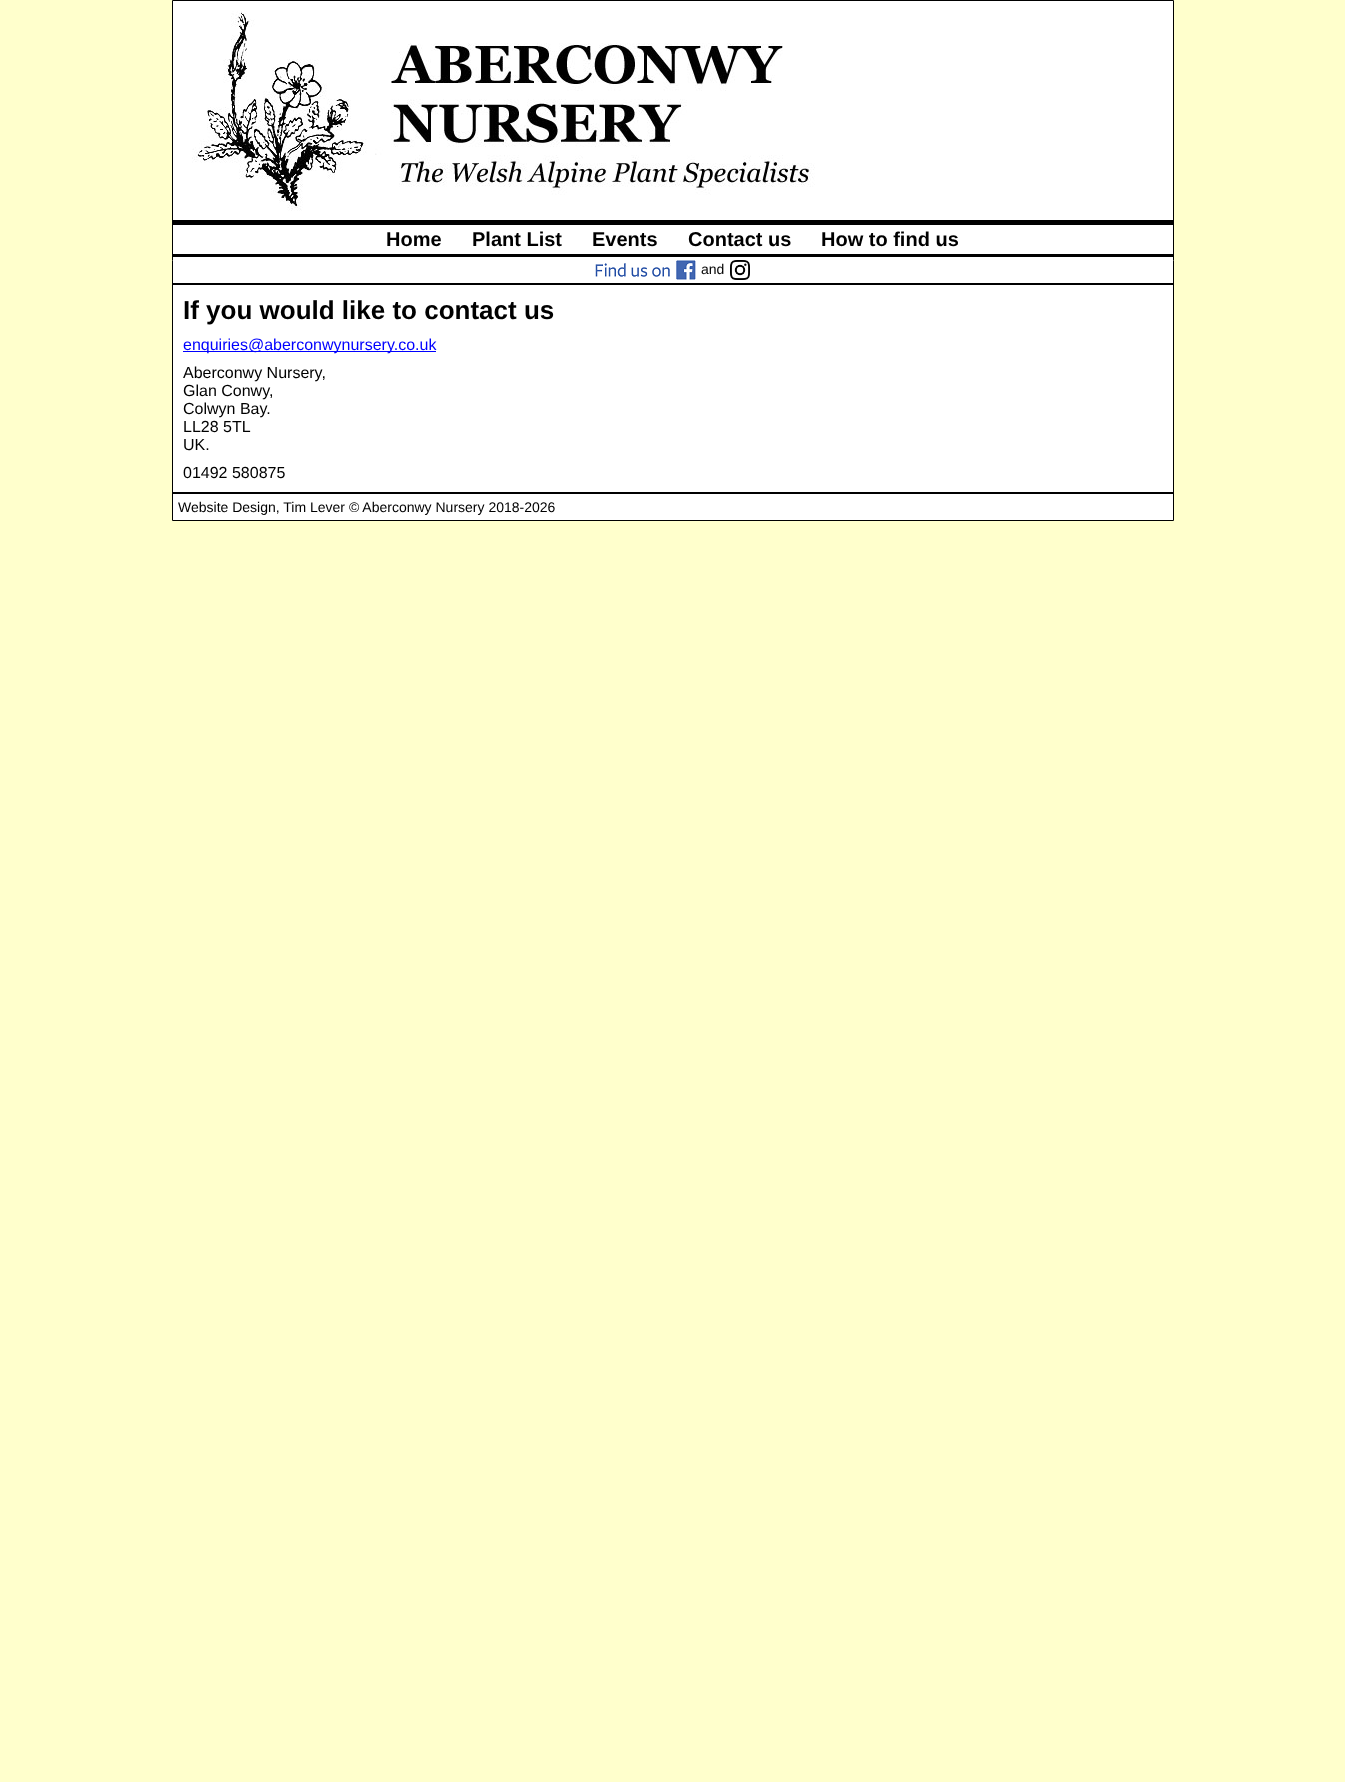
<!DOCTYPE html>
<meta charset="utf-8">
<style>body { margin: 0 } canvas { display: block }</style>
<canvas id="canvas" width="1345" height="1782"></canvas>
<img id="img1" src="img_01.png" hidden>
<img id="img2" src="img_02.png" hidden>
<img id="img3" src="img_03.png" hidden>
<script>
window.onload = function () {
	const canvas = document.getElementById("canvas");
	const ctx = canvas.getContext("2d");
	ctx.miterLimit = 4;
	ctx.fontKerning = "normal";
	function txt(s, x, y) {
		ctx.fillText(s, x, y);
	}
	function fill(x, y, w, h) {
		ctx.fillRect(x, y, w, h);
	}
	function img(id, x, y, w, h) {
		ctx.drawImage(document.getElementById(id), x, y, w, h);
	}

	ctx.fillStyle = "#FFFFCC";
	fill(0, 0, 1345, 1782);
	ctx.fillStyle = "#FFFFFF";
	ctx.beginPath();
	ctx.rect(172.5, 0.5, 1001, 520);
	ctx.fill();
	ctx.strokeStyle = "#000000";
	ctx.stroke();
	img("img1", 192, 11, 623, 200);
	ctx.fillStyle = "#000000";
	fill(173, 220, 1000, 5);
	fill(173, 254, 1000, 3);
	fill(173, 283, 1000, 2);
	img("img2", 595, 260, 101, 20);
	img("img3", 730, 260, 20, 20);
	ctx.fillStyle = "#0000FF";
	fill(183, 351, 253, 1);
	ctx.fillStyle = "#000000";
	fill(173, 492, 1000, 2);
	ctx.font = "bold 20px Liberation Sans";
	txt("Home", 386, 246);
	txt("Plant List", 472, 246);
	txt("Events", 592, 246);
	txt("Contact us", 688, 246);
	txt("How to find us", 821, 246);
	ctx.font = "14px Liberation Sans";
	txt("and", 701, 274);
	ctx.font = "bold 26px Liberation Sans";
	txt("If you would like to contact us", 183, 319);
	ctx.font = "16px Liberation Sans";
	ctx.fillStyle = "#0000FF";
	txt("enquiries@aberconwynursery.co.uk", 183, 350);
	ctx.fillStyle = "#000000";
	txt("Aberconwy Nursery,", 183, 378);
	txt("Glan Conwy,", 183, 396);
	txt("Colwyn Bay.", 183, 414);
	txt("LL28 5TL", 183, 432);
	txt("UK.", 183, 450);
	txt("01492 580875", 183, 478);
	ctx.font = "14px Liberation Sans";
	txt("Website Design, Tim Lever © Aberconwy Nursery 2018-2026", 178, 512);
};
</script>
